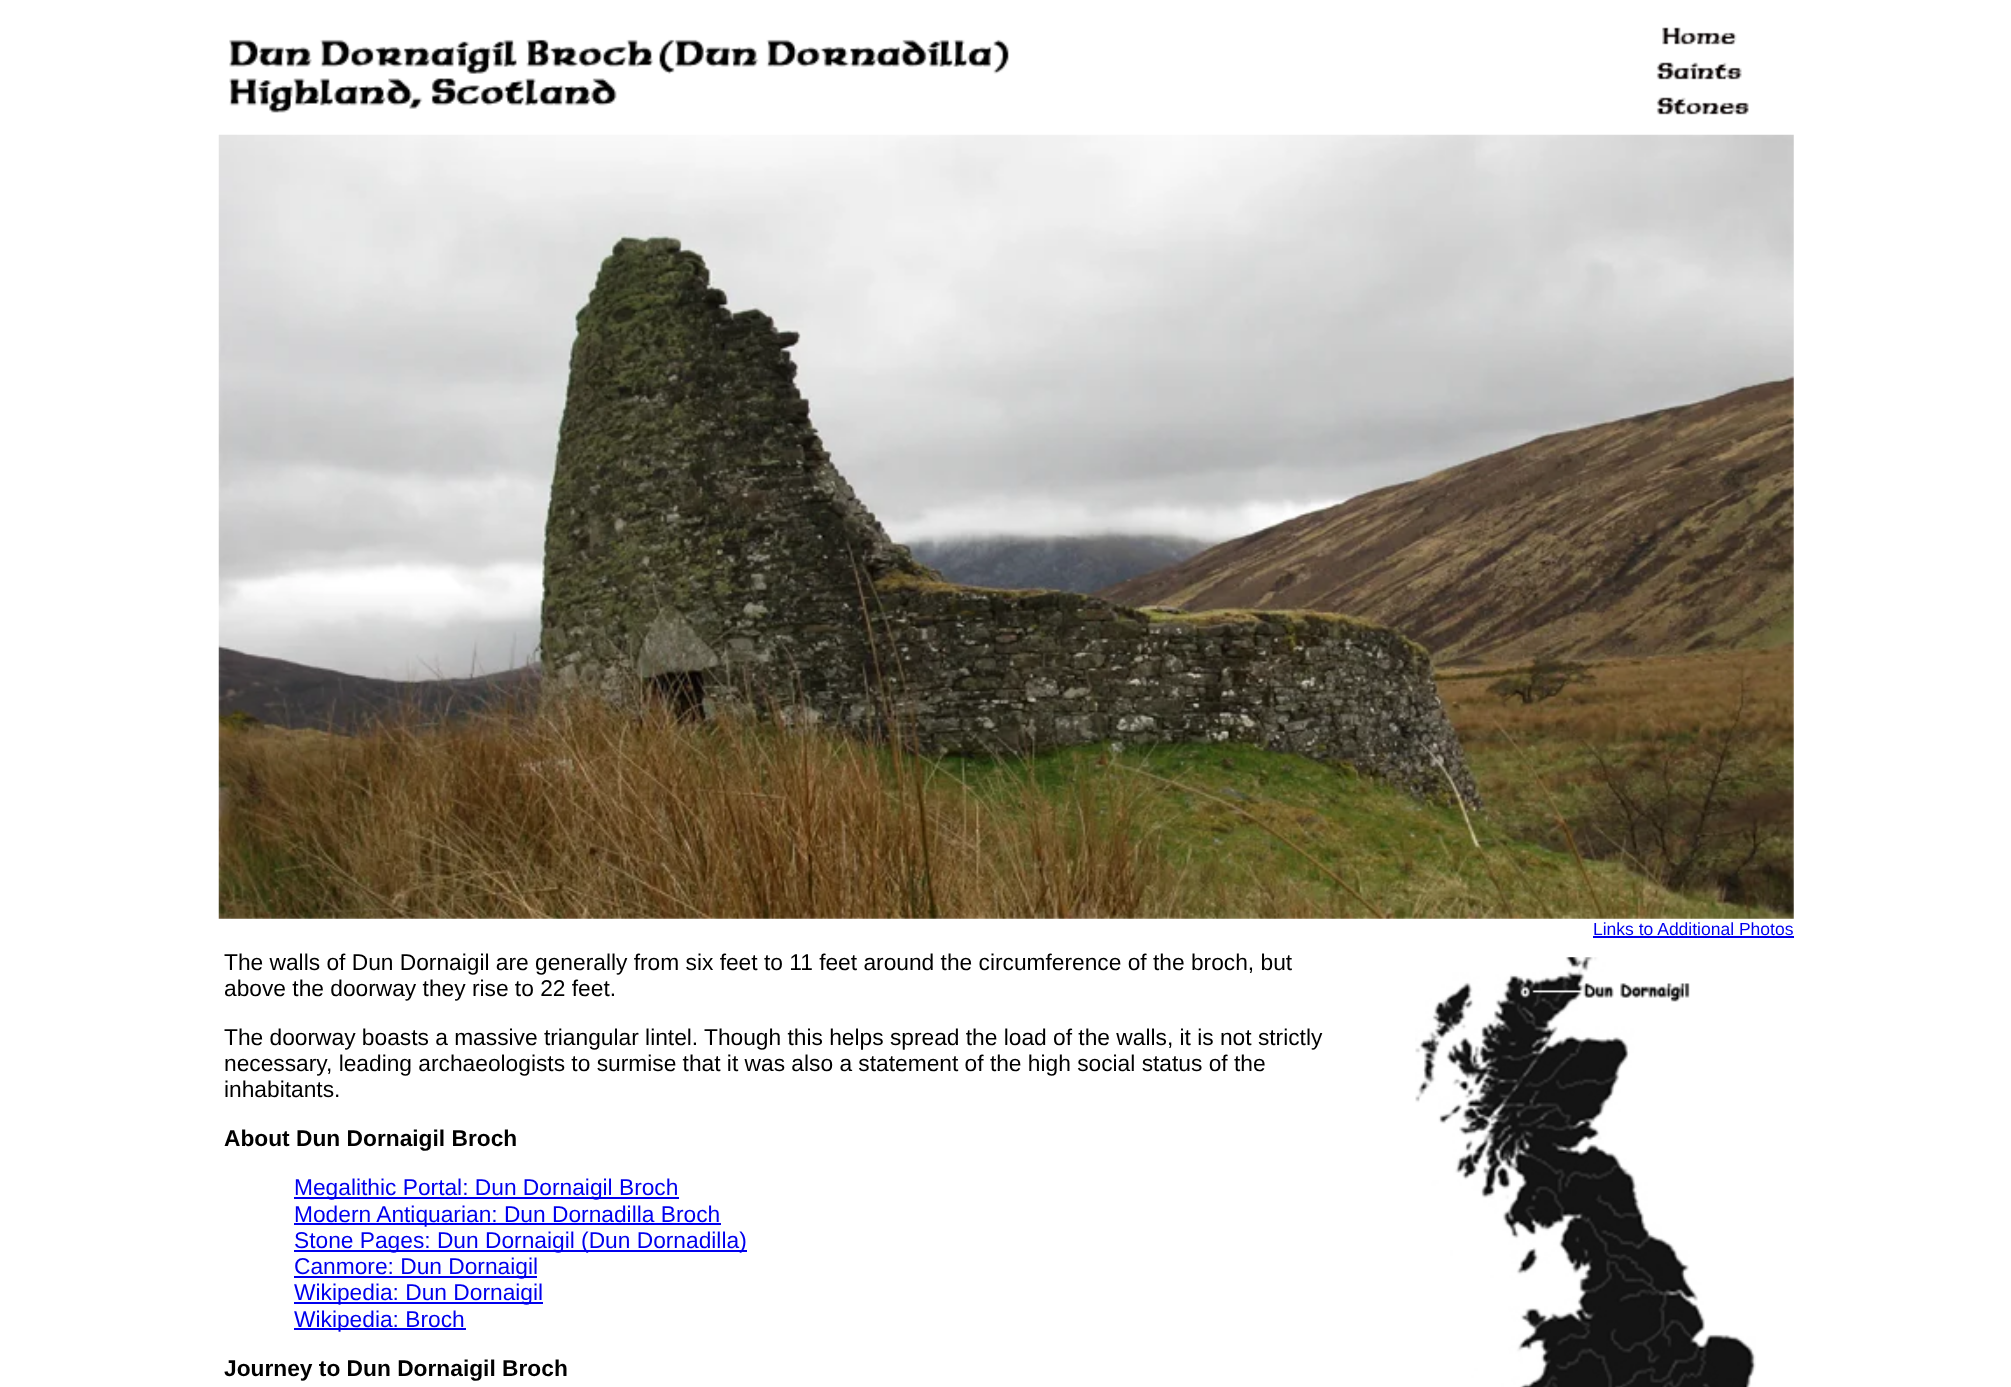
<!DOCTYPE html>
<meta charset="utf-8">
<style>body { margin: 0 } canvas { display: block }</style>
<canvas id="canvas" width="2011" height="1387"></canvas>
<img id="img1" src="img_01.png" hidden>
<img id="img2" src="img_02.png" hidden>
<img id="img3" src="img_03.png" hidden>
<img id="img4" src="img_04.png" hidden>
<img id="img5" src="img_05.png" hidden>
<img id="img6" src="img_06.png" hidden>
<script>
window.onload = function () {
	const canvas = document.getElementById("canvas");
	const ctx = canvas.getContext("2d");
	ctx.miterLimit = 4;
	ctx.fontKerning = "normal";
	function txt(s, x, y) {
		ctx.fillText(s, x, y);
	}
	function fill(x, y, w, h) {
		ctx.fillRect(x, y, w, h);
	}
	function img(id, x, y, w, h) {
		ctx.drawImage(document.getElementById(id), x, y, w, h);
	}

	ctx.fillStyle = "#FFFFFF";
	fill(0, 0, 2011, 1387);
	img("img1", 229, 39, 780, 74);
	img("img2", 1662, 27, 75, 18);
	img("img3", 1656, 62, 86, 18);
	img("img4", 1656, 97, 93, 18);
	img("img5", 218, 134, 1576, 785);
	ctx.fillStyle = "#0000EE";
	fill(1593, 936, 201, 2);
	img("img6", 1415, 957, 341, 430);
	fill(294, 1197, 385, 2);
	fill(294, 1223, 427, 2);
	fill(294, 1250, 453, 2);
	fill(294, 1276, 243, 2);
	fill(294, 1302, 249, 2);
	fill(294, 1328, 172, 2);
	ctx.font = "17.5px Liberation Sans";
	txt("Links to Additional Photos", 1593, 935);
	ctx.font = "22.75px Liberation Sans";
	ctx.fillStyle = "#000000";
	txt("The walls of Dun Dornaigil are generally from six feet to 11 feet around the circumference of the broch, but", 224, 970);
	txt("above the doorway they rise to 22 feet.", 224, 996);
	txt("The doorway boasts a massive triangular lintel.", 224, 1045);
	txt("Though this helps spread the load of the walls, it is not strictly", 704, 1045);
	txt("necessary, leading archaeologists to surmise that it was also a statement of the high social status of the", 224, 1071);
	txt("inhabitants.", 224, 1097);
	ctx.font = "bold 22.75px Liberation Sans";
	txt("About Dun Dornaigil Broch", 224, 1146);
	ctx.font = "22.75px Liberation Sans";
	ctx.fillStyle = "#0000EE";
	txt("Megalithic Portal: Dun Dornaigil Broch", 294, 1195);
	txt("Modern Antiquarian: Dun Dornadilla Broch", 294, 1222);
	txt("Stone Pages: Dun Dornaigil (Dun Dornadilla)", 294, 1248);
	txt("Canmore: Dun Dornaigil", 294, 1274);
	txt("Wikipedia: Dun Dornaigil", 294, 1300);
	txt("Wikipedia: Broch", 294, 1327);
	ctx.font = "bold 22.75px Liberation Sans";
	ctx.fillStyle = "#000000";
	txt("Journey to Dun Dornaigil Broch", 224, 1376);
};
</script>
